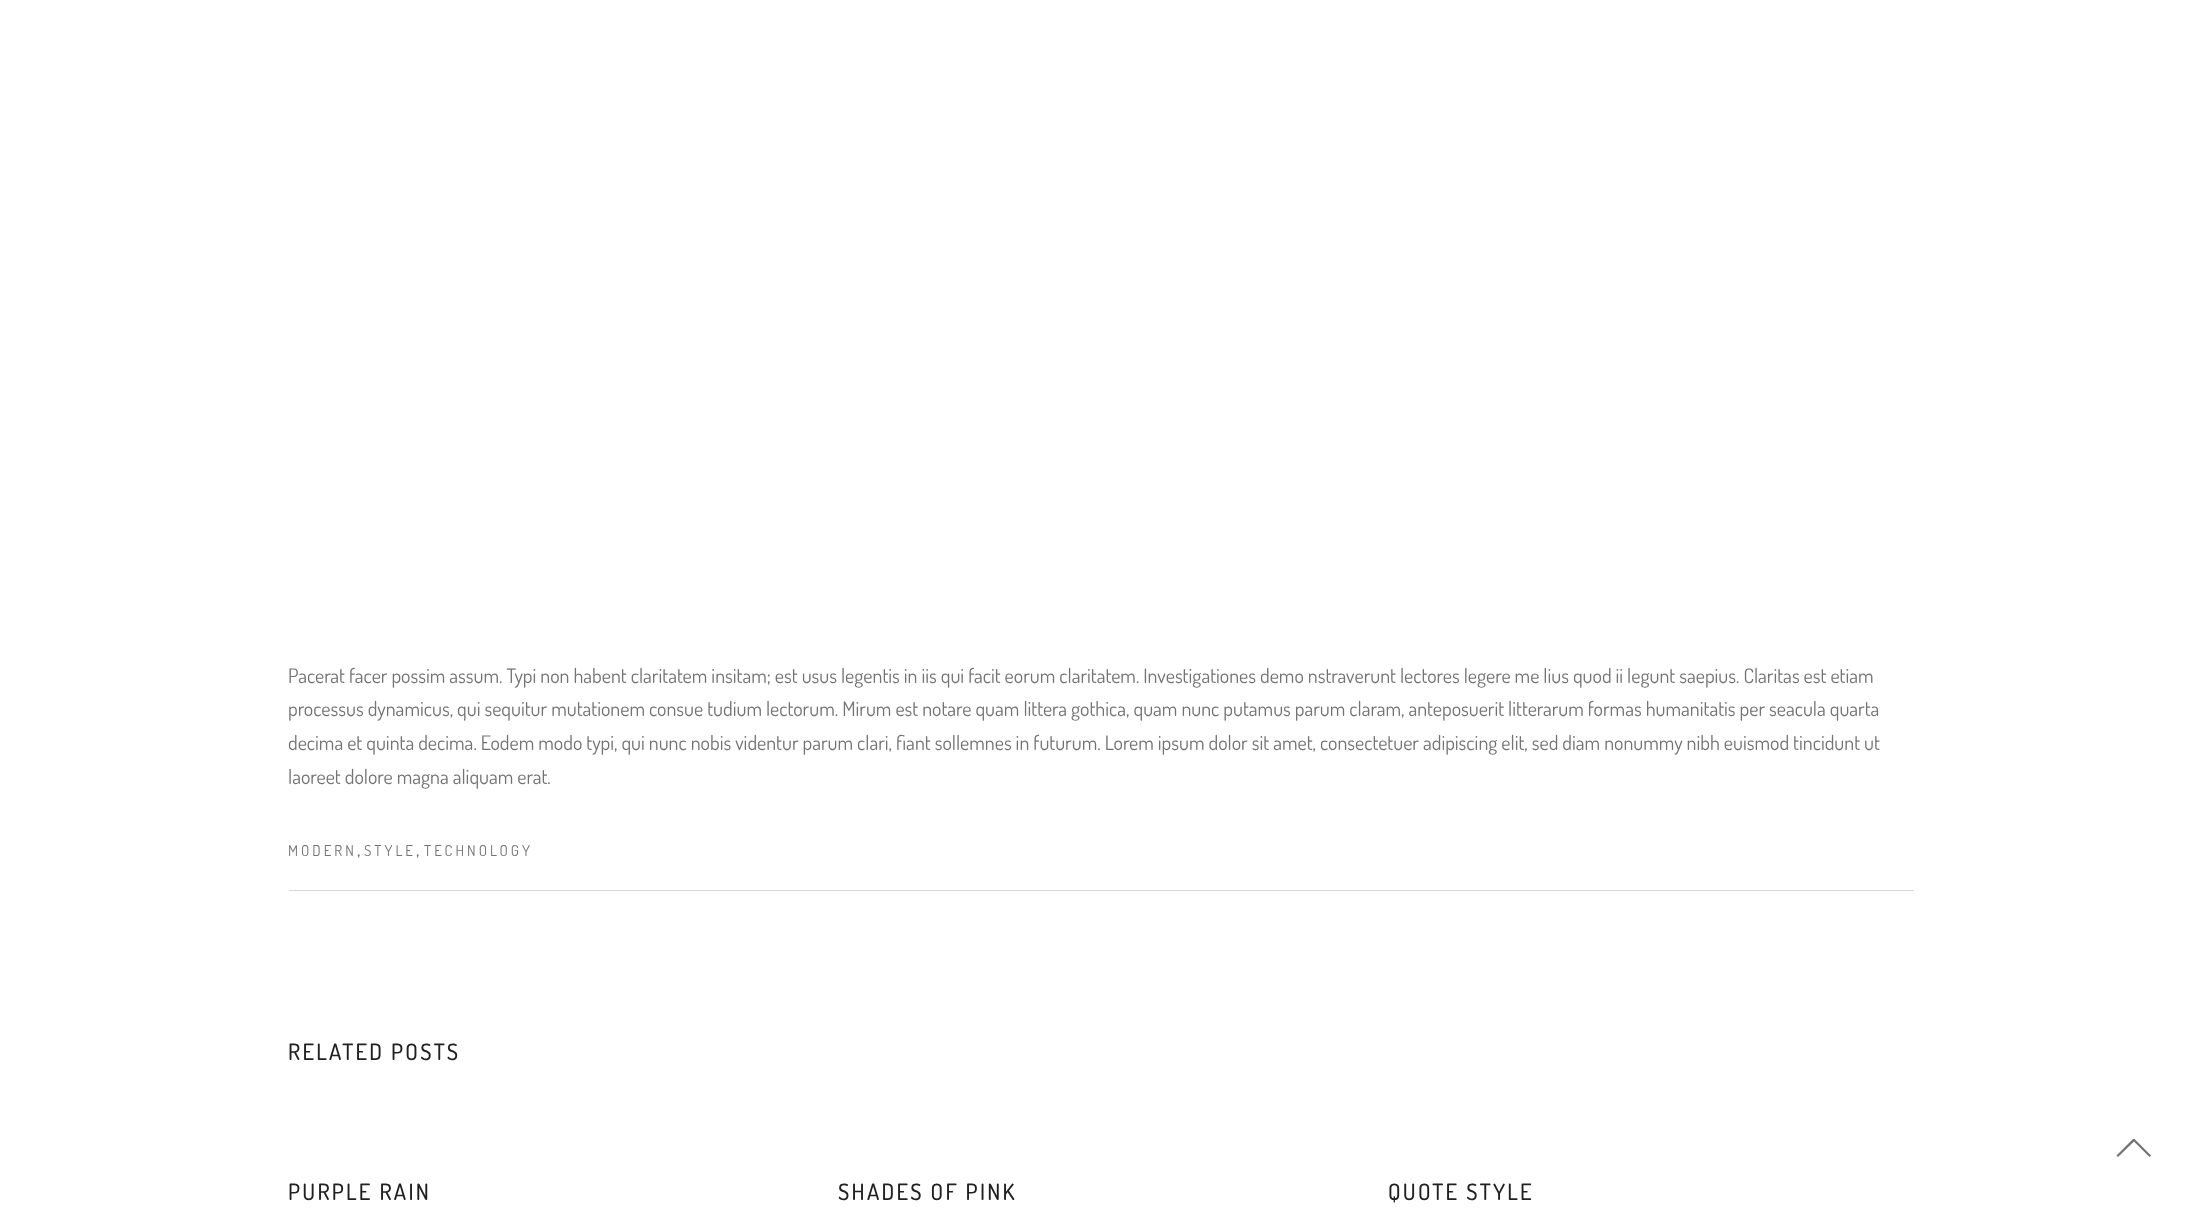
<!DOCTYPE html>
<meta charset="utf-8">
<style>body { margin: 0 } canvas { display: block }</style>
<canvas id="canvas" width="2201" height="1212"></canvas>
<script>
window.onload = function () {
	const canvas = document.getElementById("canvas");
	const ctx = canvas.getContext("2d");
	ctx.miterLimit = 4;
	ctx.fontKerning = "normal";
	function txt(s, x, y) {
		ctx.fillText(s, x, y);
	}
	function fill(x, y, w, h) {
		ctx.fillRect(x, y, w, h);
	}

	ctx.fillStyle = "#FFFFFF";
	fill(0, 0, 2201, 1212);
	ctx.fillStyle = "#D7D7D7";
	fill(289, 890, 1625, 1);
	ctx.fillStyle = "#737373";
	ctx.beginPath();
	ctx.moveTo(2151, 1155.5);
	ctx.lineTo(2149.5, 1157);
	ctx.lineTo(2134, 1141.5);
	ctx.lineTo(2118, 1157);
	ctx.lineTo(2116.5, 1155.5);
	ctx.lineTo(2133, 1139);
	ctx.lineTo(2134.5, 1139);
	ctx.closePath();
	ctx.fill();
	ctx.font = "20px Dosis";
	txt("Pacerat facer possim assum. Typi non habent claritatem insitam; est usus legentis in iis qui facit eorum claritatem. Investigationes demo nstraverunt lectores legere me lius quod ii legunt saepius. Claritas est etiam", 288, 683);
	txt("processus dynamicus, qui sequitur mutationem consue tudium lectorum. Mirum est notare quam littera gothica, quam nunc putamus parum claram, anteposuerit litterarum formas humanitatis per seacula quarta", 288, 716);
	txt("decima et quinta decima. Eodem modo typi, qui nunc nobis videntur parum clari, fiant sollemnes in futurum. Lorem ipsum dolor sit amet, consectetuer adipiscing elit, sed diam nonummy nibh euismod tincidunt ut", 288, 750);
	txt("laoreet dolore magna aliquam erat.", 288, 784);
	ctx.letterSpacing = "3px";
	ctx.font = "15px Dosis";
	txt("MODERN", 288, 856);
	ctx.letterSpacing = "0px";
	ctx.font = "20px Dosis";
	txt(",", 357, 856);
	ctx.letterSpacing = "3px";
	ctx.font = "15px Dosis";
	txt("STYLE", 364, 856);
	ctx.letterSpacing = "0px";
	ctx.font = "20px Dosis";
	txt(",", 416, 856);
	ctx.letterSpacing = "3px";
	ctx.font = "15px Dosis";
	txt("TECHNOLOGY", 424, 856);
	ctx.letterSpacing = "2.25px";
	ctx.font = "500 22.5px Dosis";
	ctx.fillStyle = "#212121";
	txt("RELATED POSTS", 288, 1060);
	txt("PURPLE RAIN", 288, 1200);
	txt("SHADES OF PINK", 838, 1200);
	txt("QUOTE STYLE", 1388, 1200);
};
</script>
